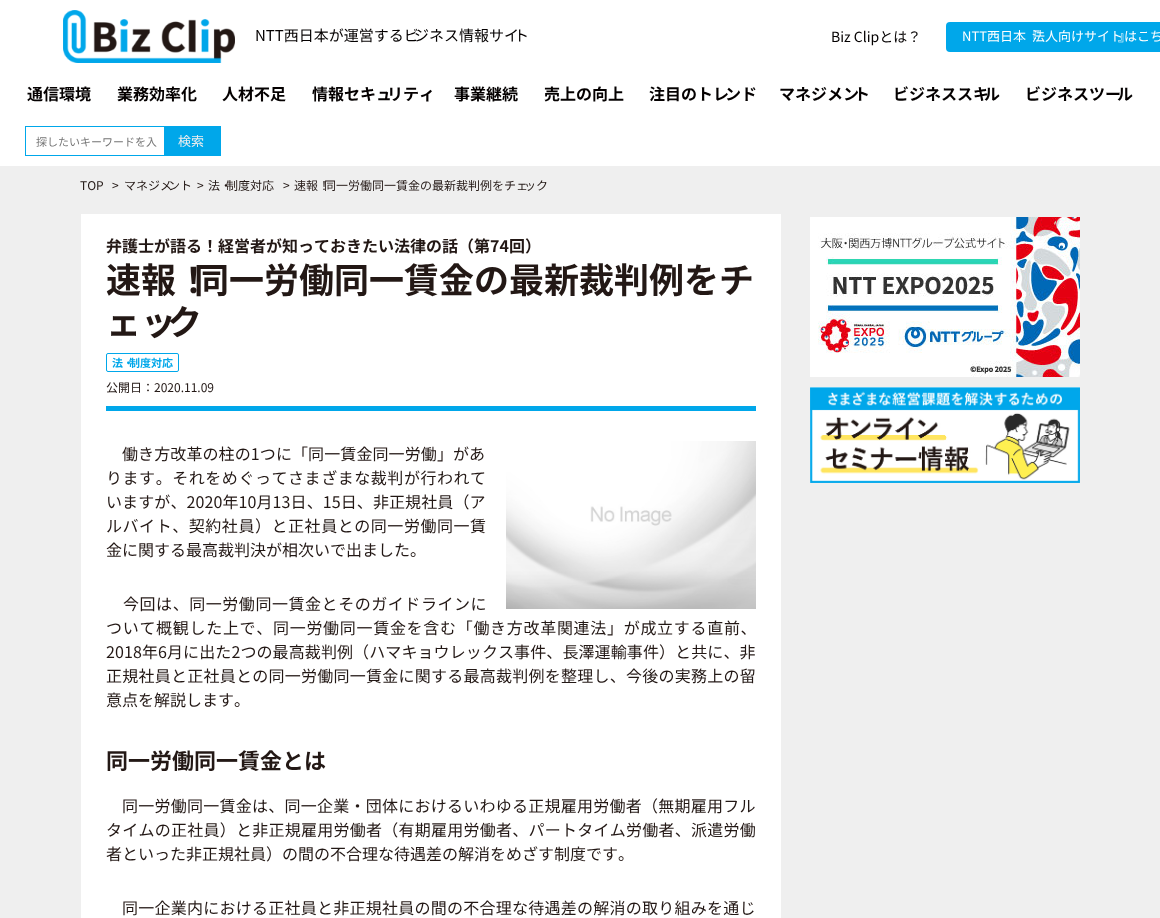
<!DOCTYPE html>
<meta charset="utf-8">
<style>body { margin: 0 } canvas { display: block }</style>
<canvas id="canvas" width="1160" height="918"></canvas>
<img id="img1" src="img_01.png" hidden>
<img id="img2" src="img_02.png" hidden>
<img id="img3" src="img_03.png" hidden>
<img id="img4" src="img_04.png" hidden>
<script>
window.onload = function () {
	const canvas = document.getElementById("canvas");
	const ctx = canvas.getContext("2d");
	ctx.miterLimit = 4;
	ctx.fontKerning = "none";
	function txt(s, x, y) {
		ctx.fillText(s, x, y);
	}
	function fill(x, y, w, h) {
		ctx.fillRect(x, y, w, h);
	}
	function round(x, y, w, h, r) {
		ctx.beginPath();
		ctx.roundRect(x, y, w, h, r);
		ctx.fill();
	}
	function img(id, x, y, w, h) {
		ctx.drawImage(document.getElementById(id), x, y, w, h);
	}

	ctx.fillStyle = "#FFFFFF";
	fill(0, 0, 1160, 918);
	img("img1", 63, 10, 172, 53);
	ctx.fillStyle = "#00A7EA";
	round(946, 22, 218, 30, 4);
	ctx.strokeStyle = "#00A7EA";
	ctx.strokeRect(25.5, 126.5, 139, 29);
	fill(165, 126, 56, 30);
	ctx.fillStyle = "#EFEFEF";
	fill(0, 166, 1160, 752);
	ctx.fillStyle = "#FFFFFF";
	fill(81, 214, 700, 704);
	ctx.fillStyle = "#00A7EA";
	fill(106, 406, 650, 5);
	ctx.beginPath();
	ctx.roundRect(106.5, 353.5, 72, 18, 1.5);
	ctx.stroke();
	img("img2", 506, 441, 250, 168);
	img("img3", 810, 217, 270, 160);
	img("img4", 810, 387, 270, 96);
	ctx.font = "15px Noto Sans JP";
	ctx.fillStyle = "#040000";
	txt("NTT西日本が運営するビ", 255, 41);
	txt("ジネス情報サイ", 414, 41);
	txt("ト", 514, 41);
	ctx.font = "14px Noto Sans JP";
	txt("Biz Clipとは？", 831, 42);
	ctx.font = "13px Noto Sans JP";
	ctx.fillStyle = "#FFFFFF";
	txt("NTT西日本『", 962, 41);
	txt("法人向けサイト", 1032, 41);
	txt("』", 1118, 41);
	txt("はこち", 1124, 41);
	ctx.font = "bold 16px Noto Sans JP";
	ctx.fillStyle = "#040000";
	txt("通信環境", 27, 100);
	txt("業務効率化", 117, 100);
	txt("人材不足", 222, 100);
	txt("情報セキュ", 312, 100);
	txt("リティ", 387, 100);
	txt("事業継続", 454, 100);
	txt("売上の向上", 544, 100);
	txt("注目のトレ", 649, 100);
	txt("ンド", 725, 100);
	txt("マネジメン", 779, 100);
	txt("ト", 854, 100);
	txt("ビジネススキ", 893, 100);
	txt("ル", 984, 100);
	txt("ビジネスツー", 1025, 100);
	txt("ル", 1117, 100);
	ctx.font = "11px Noto Sans JP";
	ctx.fillStyle = "#757575";
	txt("探したいキーワードを入", 36, 146);
	ctx.font = "13px Noto Sans JP";
	ctx.fillStyle = "#EEEEEE";
	txt("検索", 178, 146);
	ctx.font = "12px Noto Sans JP";
	ctx.fillStyle = "#231815";
	txt("TOP", 80, 190);
	txt(">", 112, 190);
	txt("マネジメ", 124, 190);
	txt("ント", 168, 190);
	txt(">", 197, 190);
	txt("法・", 208, 190);
	txt("制度対応", 226, 190);
	txt(">", 283, 190);
	txt("速報！", 294, 190);
	txt("同一労働同一賃金の最新裁判例をチェ", 324, 190);
	txt("ック", 524, 190);
	ctx.font = "bold 16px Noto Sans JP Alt";
	txt("弁護士が語る！経営者が知っておきたい法律の話（第74回）", 106, 252);
	ctx.font = "bold 35px Noto Sans JP";
	txt("速報！", 106, 293);
	txt("同一労働同一賃金の最新裁判例をチ", 194, 293);
	txt("ェッ", 106, 335);
	txt("ク", 167, 335);
	ctx.font = "bold 11px Noto Sans JP";
	ctx.fillStyle = "#00A7EA";
	txt("法・", 112, 367);
	txt("制度対応", 129, 367);
	ctx.font = "12px Noto Sans JP Alt";
	ctx.fillStyle = "#231815";
	txt("公開日：2020.11.09", 106, 392);
	ctx.letterSpacing = "0.1px";
	ctx.font = "16px Noto Sans JP";
	txt("働き方改革の柱の1つに「同一賃金同一労働」があ", 122, 460);
	ctx.letterSpacing = "0.55px";
	txt("ります。それをめぐってさまざまな裁判が行われ", 106, 484);
	txt("て", 470, 484);
	ctx.letterSpacing = "0.1px";
	txt("いますが、2020年10月13日、15日、非正規社員（ア", 106, 508);
	ctx.letterSpacing = "0.55px";
	txt("ルバイト、契約社員）と正社員との同一労働同一賃", 106, 532);
	ctx.letterSpacing = "0px";
	txt("金に関する最高裁判決が相次いで出ました。", 106, 556);
	ctx.letterSpacing = "0.55px";
	txt("今回は、同一労働同一賃金とそのガイドラインに", 123, 610);
	ctx.letterSpacing = "0.7px";
	txt("ついて概観した上で、同一労働同一賃金を含む「働き方改革関連法」が成立する直前、", 106, 634);
	ctx.letterSpacing = "0.1px";
	txt("2018年6月に出た2つの最高裁判例（ハマキョウレックス事件、長澤運輸事件）と共に、非", 106, 658);
	ctx.letterSpacing = "0.25px";
	txt("正規社員と正社員との同一労働同一賃金に関する最高裁判例を整理し、今後の実務上の留", 106, 682);
	ctx.letterSpacing = "0px";
	txt("意点を解説します。", 106, 706);
	ctx.font = "bold 22px Noto Sans JP";
	txt("同一労働同一賃金とは", 106, 769);
	ctx.letterSpacing = "0.25px";
	ctx.font = "16px Noto Sans JP";
	txt("同一労働同一賃金は、同一企業・団体におけるいわゆる正規雇用労働者（無期雇用フル", 122, 812);
	txt("タイムの正社員）と非正規雇用労働者（有期雇用労働者、パートタイム労働者、派遣労働", 106, 836);
	ctx.letterSpacing = "0px";
	txt("者といった非正規社員）の間の不合理な待遇差の解消をめざす制度です。", 106, 860);
	ctx.letterSpacing = "0.25px";
	txt("同一企業内における正社員と非正規社員の間の不合理な待遇差の解消の取り組みを通じ", 122, 914);
};
</script>
